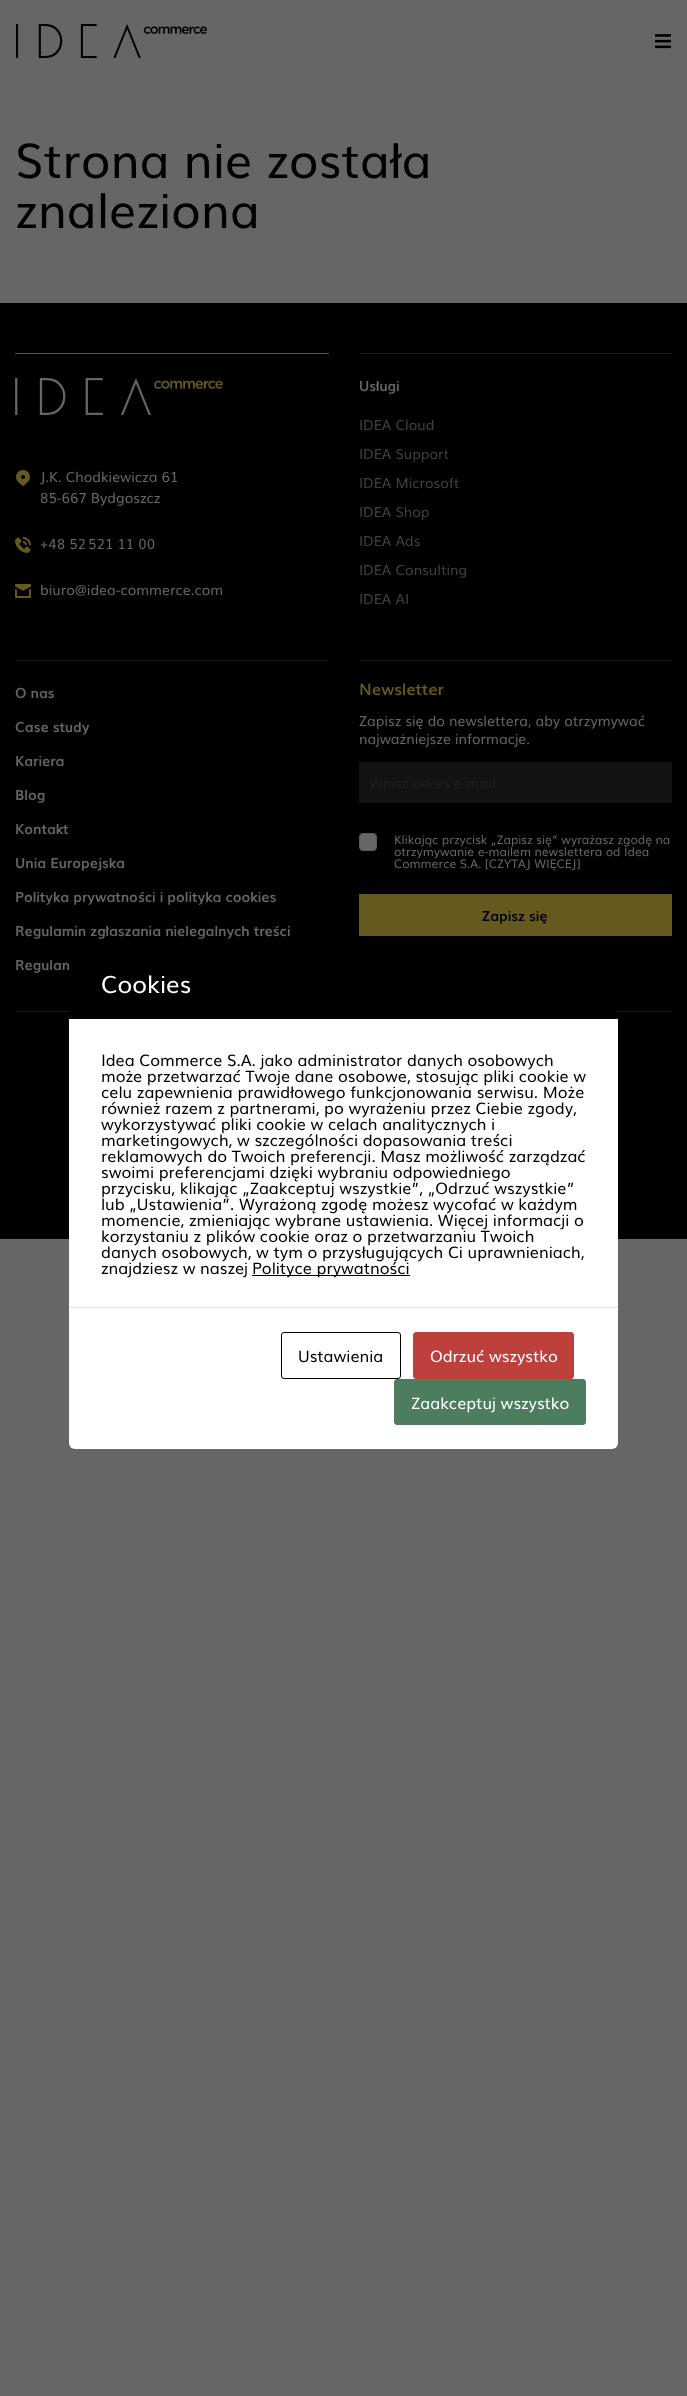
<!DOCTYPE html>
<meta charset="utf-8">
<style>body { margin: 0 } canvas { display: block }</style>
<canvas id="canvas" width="687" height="2396"></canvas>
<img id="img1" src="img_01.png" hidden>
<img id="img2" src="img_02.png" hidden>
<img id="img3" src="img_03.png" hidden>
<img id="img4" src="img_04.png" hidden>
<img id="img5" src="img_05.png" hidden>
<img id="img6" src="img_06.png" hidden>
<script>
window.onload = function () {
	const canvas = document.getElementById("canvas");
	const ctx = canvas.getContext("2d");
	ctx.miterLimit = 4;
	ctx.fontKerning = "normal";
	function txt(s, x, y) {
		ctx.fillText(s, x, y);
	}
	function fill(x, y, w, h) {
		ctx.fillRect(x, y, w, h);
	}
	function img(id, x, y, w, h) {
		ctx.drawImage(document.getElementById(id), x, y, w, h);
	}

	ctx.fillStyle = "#666666";
	fill(0, 0, 687, 2396);
	img("img1", 16, 24, 191, 34);
	img("img2", 655, 34, 16, 15);
	ctx.fillStyle = "#000000";
	fill(0, 303, 687, 936);
	ctx.fillStyle = "#655920";
	fill(15, 353, 314, 1);
	img("img3", 15, 378, 208, 37);
	img("img4", 16, 470, 14, 16);
	img("img5", 15, 537, 16, 16);
	img("img6", 15, 584, 16, 14);
	ctx.fillStyle = "#16171A";
	fill(359, 353, 313, 1);
	fill(15, 660, 314, 1);
	fill(359, 660, 313, 1);
	ctx.fillStyle = "#121214";
	fill(359, 762, 313, 41);
	ctx.fillStyle = "#666666";
	ctx.beginPath();
	ctx.roundRect(359.5, 833.5, 17, 17, 3.5);
	ctx.fill();
	ctx.strokeStyle = "#5C5C5C";
	ctx.stroke();
	ctx.fillStyle = "#655920";
	fill(359, 894, 313, 42);
	ctx.fillStyle = "#16171A";
	fill(15, 1011, 657, 1);
	ctx.fillStyle = "#FFFFFF";
	fill(69, 1019, 549, 288);
	ctx.fillStyle = "#000000";
	fill(252, 1275, 158, 1);
	ctx.fillStyle = "#FFFFFF";
	ctx.beginPath();
	ctx.roundRect(69, 1307, 549, 142, [0, 0, 6, 6]);
	ctx.fill();
	ctx.fillStyle = "#E6E6E6";
	fill(69, 1307, 549, 1);
	ctx.beginPath();
	ctx.roundRect(281.5, 1332.5, 119, 46, 2.5);
	ctx.strokeStyle = "#000000";
	ctx.stroke();
	ctx.fillStyle = "#BD403C";
	ctx.beginPath();
	ctx.roundRect(413.5, 1332.5, 160, 46, 2.5);
	ctx.fill();
	ctx.strokeStyle = "#BD403C";
	ctx.stroke();
	ctx.fillStyle = "#4B7D5E";
	ctx.beginPath();
	ctx.roundRect(394.5, 1379.5, 191, 45, 2.5);
	ctx.fill();
	ctx.strokeStyle = "#4B7D5E";
	ctx.stroke();
	ctx.font = "48px Muli";
	ctx.fillStyle = "#000000";
	txt("Strona nie została", 15, 178);
	txt("znaleziona", 15, 228);
	ctx.font = "14px Muli";
	ctx.fillStyle = "#666666";
	txt("J.K. Chodkiewicza 61", 40, 482);
	txt("85-667 Bydgoszcz", 40, 503);
	txt("+48 52 521 11 00", 40, 549);
	txt("biuro@idea-commerce.com", 40, 595);
	ctx.font = "bold 14px Muli";
	txt("Usługi", 359, 391);
	ctx.font = "14px Muli";
	ctx.fillStyle = "#404148";
	txt("IDEA Cloud", 359, 430);
	txt("IDEA Support", 359, 459);
	txt("IDEA Microsoft", 359, 488);
	txt("IDEA Shop", 359, 517);
	txt("IDEA Ads", 359, 546);
	txt("IDEA Consulting", 359, 575);
	txt("IDEA AI", 359, 604);
	ctx.font = "bold 14px Muli";
	ctx.fillStyle = "#666666";
	txt("O nas", 15, 698);
	txt("Case study", 15, 732);
	txt("Kariera", 15, 766);
	txt("Blog", 15, 800);
	txt("Kontakt", 15, 834);
	txt("Unia Europejska", 15, 868);
	txt("Polityka prywatności i polityka cookies", 15, 902);
	txt("Regulamin zgłaszania nielegalnych treści", 15, 936);
	txt("Regulam", 15, 970);
	ctx.font = "bold 16px Muli";
	ctx.fillStyle = "#655920";
	txt("Newsletter", 359, 695);
	ctx.font = "14px Muli";
	ctx.fillStyle = "#666666";
	txt("Zapisz się do newslettera, aby otrzymywać", 359, 726);
	txt("najważniejsze informacje.", 359, 744);
	ctx.fillStyle = "#202024";
	txt("Wpisz adres e-mail", 369, 788);
	ctx.font = "12px Muli";
	ctx.fillStyle = "#666666";
	txt("Klikając przycisk „Zapisz się” wyrażasz zgodę na", 394, 844);
	txt("otrzymywanie e-mailem newslettera od Idea", 394, 856);
	txt("Commerce S.A. [CZYTAJ WIĘCEJ]", 394, 868);
	ctx.font = "bold 14px Muli";
	ctx.fillStyle = "#000000";
	txt("Zapisz się", 482, 921);
	ctx.beginPath();
	ctx.roundRect(69, 947, 549, 72, [6, 6, 0, 0]);
	ctx.fill();
	ctx.font = "24px Muli";
	ctx.fillStyle = "#FFFFFF";
	txt("Cookies", 101, 993);
	ctx.font = "16px Muli";
	ctx.fillStyle = "#000000";
	txt("Idea Commerce S.A. jako administrator danych osobowych", 101, 1066);
	txt("może przetwarzać Twoje dane osobowe, stosując pliki cookie w", 101, 1082);
	txt("celu zapewnienia prawidłowego funkcjonowania serwisu. Może", 101, 1098);
	txt("również razem z partnerami, po wyrażeniu przez Ciebie zgody,", 101, 1114);
	txt("wykorzystywać pliki cookie w celach analitycznych i", 101, 1130);
	txt("marketingowych, w szczególności dopasowania treści", 101, 1146);
	txt("reklamowych do Twoich preferencji. Masz możliwość zarządzać", 101, 1162);
	txt("swoimi preferencjami dzięki wybraniu odpowiedniego", 101, 1178);
	txt("przycisku, klikając „Zaakceptuj wszystkie”, „Odrzuć wszystkie”", 101, 1194);
	txt("lub „Ustawienia”. Wyrażoną zgodę możesz wycofać w każdym", 101, 1210);
	txt("momencie, zmieniając wybrane ustawienia. Więcej informacji o", 101, 1226);
	txt("korzystaniu z plików cookie oraz o przetwarzaniu Twoich", 101, 1242);
	txt("danych osobowych, w tym o przysługujących Ci uprawnieniach,", 101, 1258);
	txt("znajdziesz w naszej", 101, 1274);
	txt("Polityce prywatności", 252, 1274);
	txt("Ustawienia", 298, 1362);
	ctx.fillStyle = "#FFFFFF";
	txt("Odrzuć wszystko", 430, 1362);
	txt("Zaakceptuj wszystko", 411, 1409);
};
</script>
